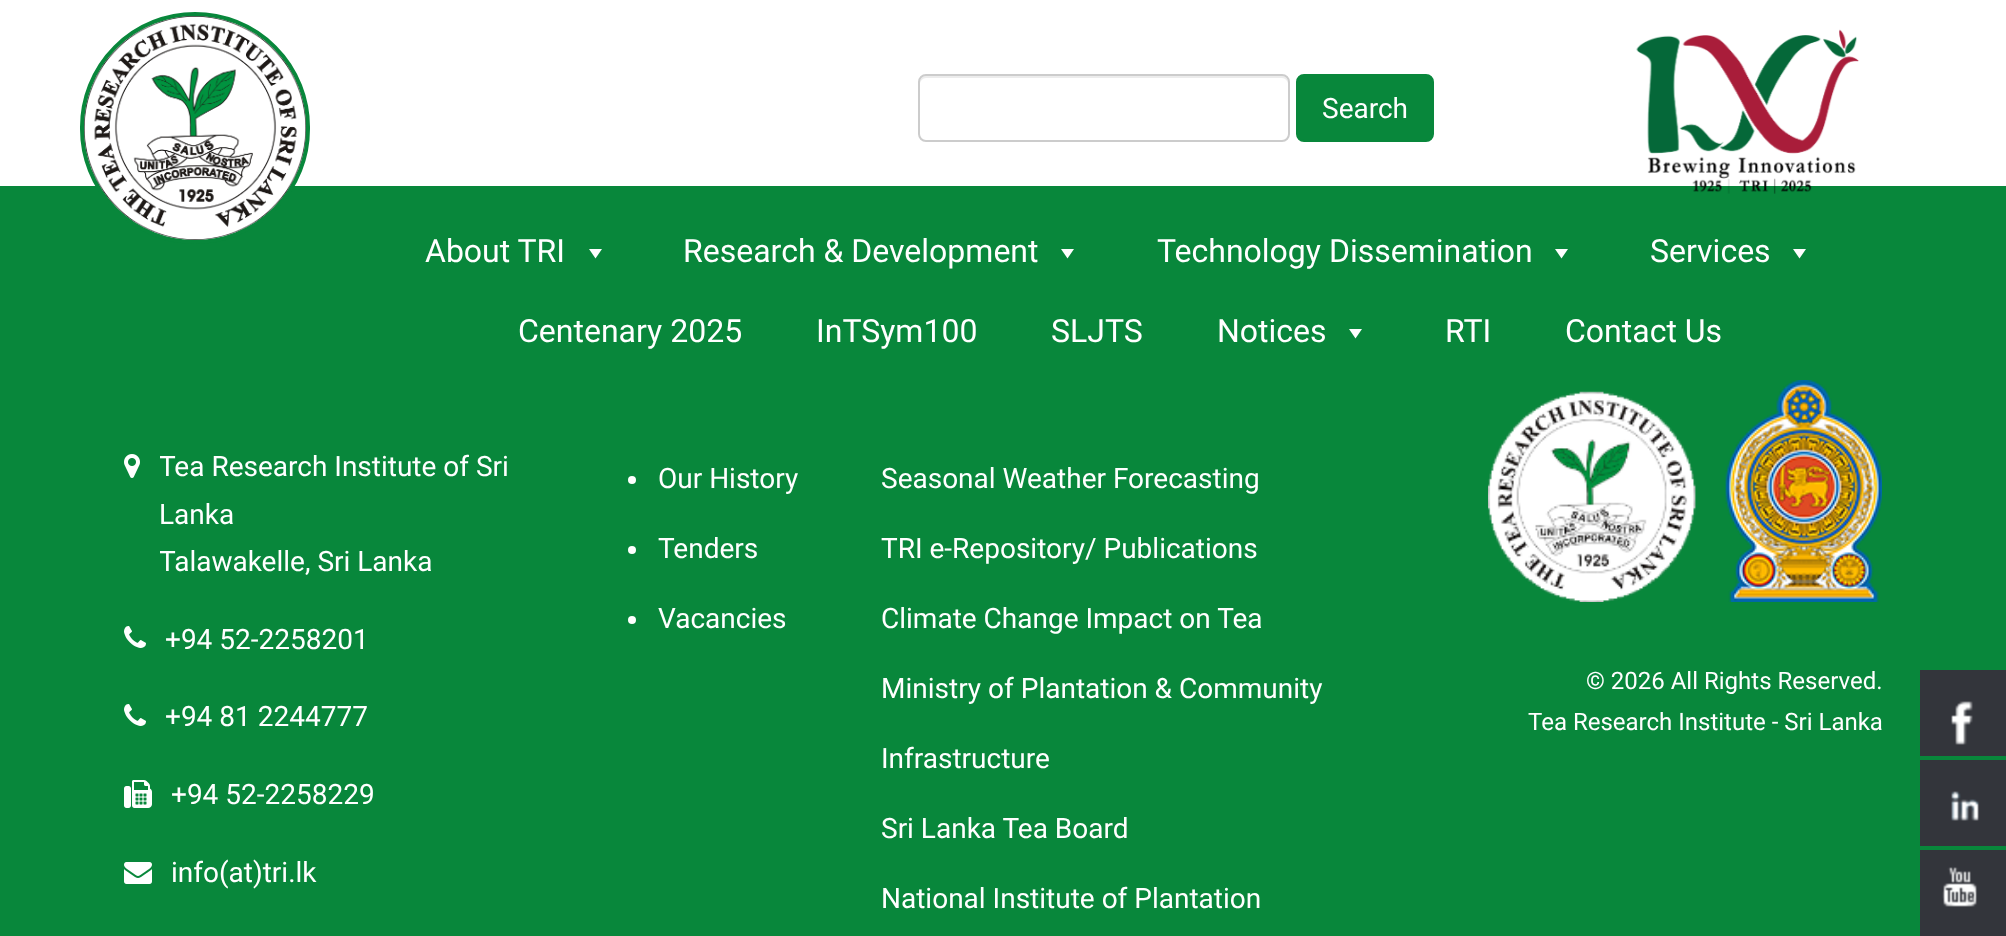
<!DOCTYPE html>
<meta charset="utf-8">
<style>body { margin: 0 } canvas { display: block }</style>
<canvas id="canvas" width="2006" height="936"></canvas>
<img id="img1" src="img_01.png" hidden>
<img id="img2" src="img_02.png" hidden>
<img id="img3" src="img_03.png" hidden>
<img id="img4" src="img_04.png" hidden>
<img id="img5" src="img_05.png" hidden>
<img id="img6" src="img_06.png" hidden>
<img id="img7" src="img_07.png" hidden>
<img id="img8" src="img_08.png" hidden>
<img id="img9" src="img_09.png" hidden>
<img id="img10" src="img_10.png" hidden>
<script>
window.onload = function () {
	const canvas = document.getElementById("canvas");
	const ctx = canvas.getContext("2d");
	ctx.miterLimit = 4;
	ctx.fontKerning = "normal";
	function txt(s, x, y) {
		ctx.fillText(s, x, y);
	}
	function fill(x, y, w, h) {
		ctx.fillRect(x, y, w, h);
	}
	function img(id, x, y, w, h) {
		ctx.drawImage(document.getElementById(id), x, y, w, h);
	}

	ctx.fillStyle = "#08873B";
	fill(0, 0, 2006, 936);
	ctx.fillStyle = "#FFFFFF";
	fill(0, 0, 2006, 186);
	ctx.beginPath();
	ctx.roundRect(82, 14, 226, 228, 113);
	ctx.fill();
	ctx.strokeStyle = "#08873B";
	ctx.lineWidth = 4;
	ctx.stroke();
	img("img1", 84, 16, 222, 224);
	ctx.fillStyle = "#ECECEC";
	ctx.beginPath();
	ctx.moveTo(926, 78);
	ctx.lineTo(1282, 78);
	ctx.bezierCurveTo(1285, 78, 1288, 81, 1288, 84);
	ctx.lineTo(1288, 82);
	ctx.bezierCurveTo(1288, 79, 1285, 76, 1282, 76);
	ctx.lineTo(926, 76);
	ctx.bezierCurveTo(923, 76, 920, 79, 920, 82);
	ctx.lineTo(920, 84);
	ctx.bezierCurveTo(920, 81, 923, 78, 926, 78);
	ctx.closePath();
	ctx.fill();
	ctx.beginPath();
	ctx.roundRect(919, 75, 370, 66, 7);
	ctx.strokeStyle = "#CCCCCC";
	ctx.lineWidth = 2;
	ctx.stroke();
	ctx.fillStyle = "#08873B";
	ctx.beginPath();
	ctx.roundRect(1297, 75, 136, 66, 7);
	ctx.fill();
	ctx.strokeStyle = "#08873B";
	ctx.stroke();
	img("img2", 1636, 29, 223, 165);
	ctx.fillStyle = "#FFFFFF";
	ctx.beginPath();
	ctx.moveTo(602, 249);
	ctx.lineTo(595.5, 258.5);
	ctx.lineTo(589, 249);
	ctx.closePath();
	ctx.fill();
	ctx.beginPath();
	ctx.moveTo(1074, 249);
	ctx.lineTo(1067.5, 258.5);
	ctx.lineTo(1061, 249);
	ctx.closePath();
	ctx.fill();
	ctx.beginPath();
	ctx.moveTo(1568, 249);
	ctx.lineTo(1561.5, 258.5);
	ctx.lineTo(1555, 249);
	ctx.closePath();
	ctx.fill();
	ctx.beginPath();
	ctx.moveTo(1806, 249);
	ctx.lineTo(1799.5, 258.5);
	ctx.lineTo(1793, 249);
	ctx.closePath();
	ctx.fill();
	ctx.beginPath();
	ctx.moveTo(1362, 329);
	ctx.lineTo(1355.5, 338.5);
	ctx.lineTo(1349, 329);
	ctx.closePath();
	ctx.fill();
	img("img3", 124, 454, 16, 24);
	img("img4", 124, 626, 22, 22);
	img("img4", 124, 704, 22, 22);
	img("img5", 124, 780, 28, 28);
	img("img6", 124, 862, 28, 22);
	ctx.beginPath();
	ctx.arc(632, 480, 4, 0, Math.PI * 2);
	ctx.fill();
	ctx.beginPath();
	ctx.arc(632, 550, 4, 0, Math.PI * 2);
	ctx.fill();
	ctx.beginPath();
	ctx.arc(632, 620, 4, 0, Math.PI * 2);
	ctx.fill();
	img("img7", 1488, 380, 394, 222);
	ctx.fillStyle = "#33353B";
	fill(1920, 670, 86, 86);
	img("img8", 1951, 701, 22, 44);
	fill(1920, 760, 86, 86);
	img("img9", 1951, 791, 28, 30);
	fill(1920, 850, 86, 86);
	img("img10", 1942, 867, 35, 40);
	ctx.font = "28px Roboto";
	ctx.fillStyle = "#FFFFFF";
	txt("Search", 1322, 118);
	ctx.font = "32px Roboto";
	txt("About TRI", 425, 262);
	txt("Research & Development", 683, 262);
	txt("Technology Dissemination", 1157, 262);
	txt("Services", 1650, 262);
	txt("Centenary 2025", 518, 342);
	txt("InTSym100", 816, 342);
	txt("SLJTS", 1051, 342);
	txt("Notices", 1217, 342);
	txt("RTI", 1445, 342);
	txt("Contact Us", 1565, 342);
	ctx.save();
	ctx.beginPath();
	ctx.rect(160, 444, 358, 142);
	ctx.clip();
	ctx.font = "28px Roboto";
	txt("Tea Research Institute of Sri", 159, 476);
	ctx.restore();
	ctx.font = "28px Roboto";
	txt("Lanka", 159, 524);
	ctx.save();
	ctx.beginPath();
	ctx.rect(160, 444, 358, 142);
	ctx.clip();
	txt("Talawakelle, Sri Lanka", 159, 571);
	ctx.restore();
	txt("+94 52-2258201", 165, 649);
	txt("+94 81 2244777", 165, 726);
	txt("+94 52-2258229", 171, 804);
	txt("info(at)tri.lk", 171, 882);
	txt("Our History", 658, 488);
	txt("Tenders", 658, 558);
	txt("Vacancies", 658, 628);
	txt("Seasonal Weather Forecasting", 881, 488);
	txt("TRI e-Repository/ Publications", 881, 558);
	txt("Climate Change Impact on Tea", 881, 628);
	txt("Ministry of Plantation & Community", 881, 698);
	txt("Infrastructure", 881, 768);
	txt("Sri Lanka Tea Board", 881, 838);
	txt("National Institute of Plantation", 881, 908);
	ctx.font = "24px Roboto";
	txt("© 2026 All Rights Reserved.", 1586, 689);
	txt("Tea Research Institute - Sri Lanka", 1528, 730);
};
</script>
